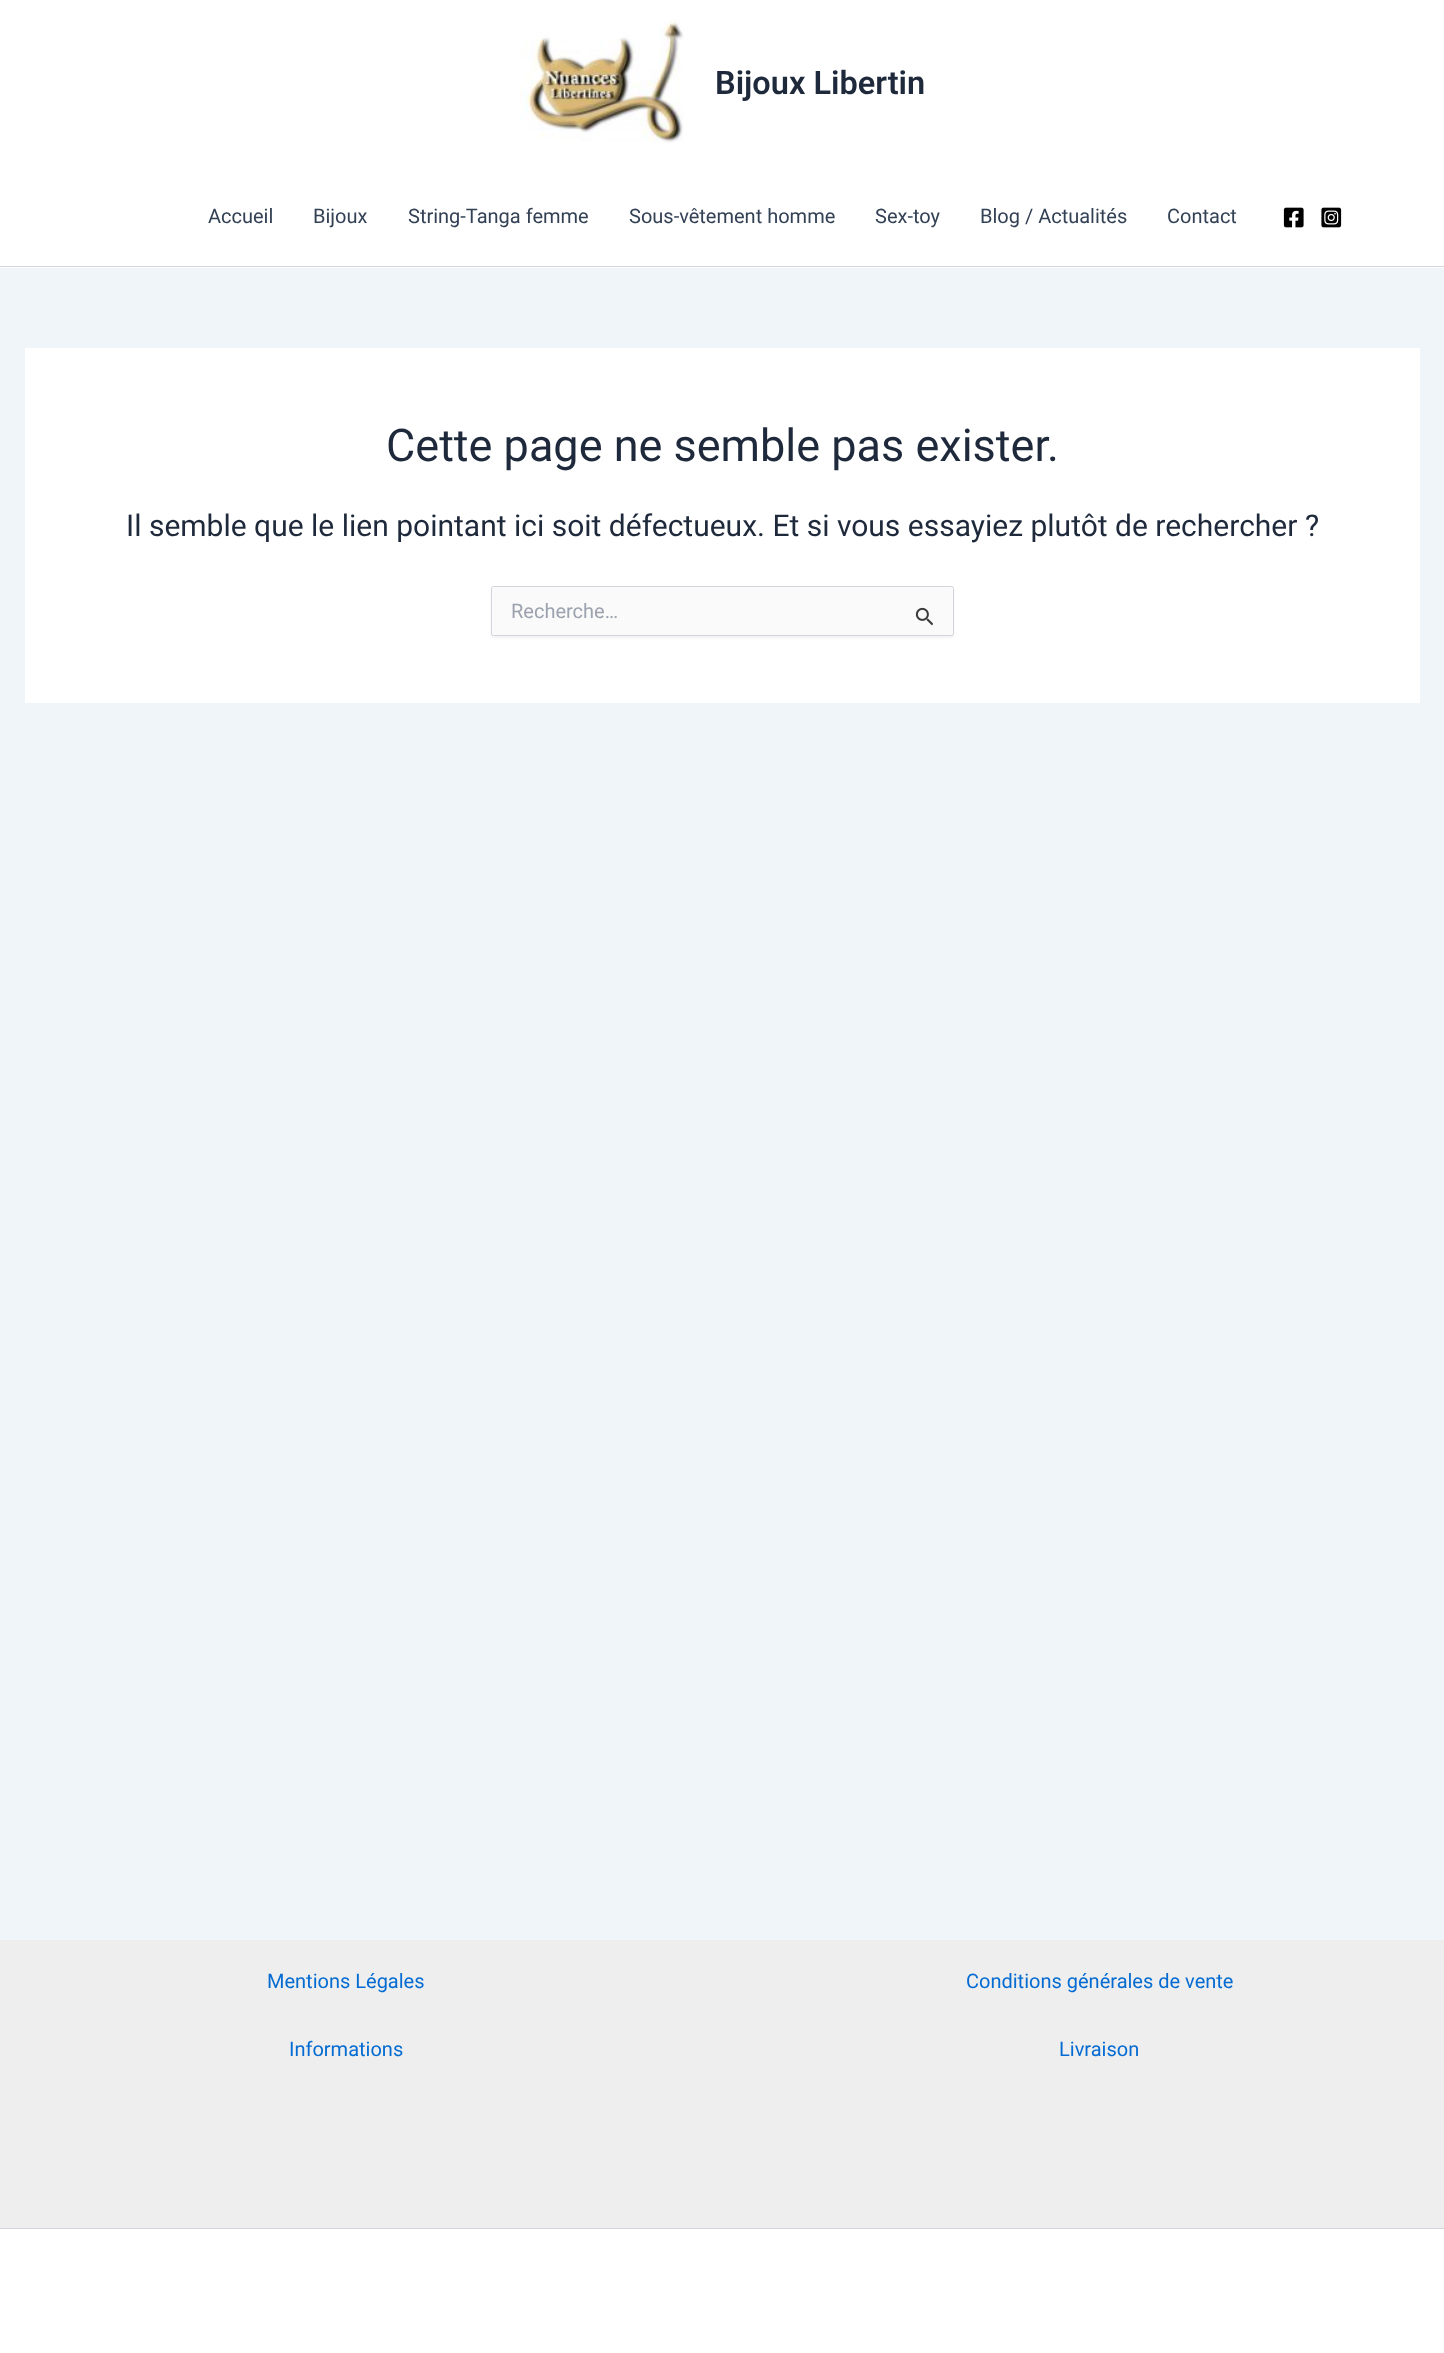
<!DOCTYPE html>
<meta charset="utf-8">
<style>body { margin: 0 } canvas { display: block }</style>
<canvas id="canvas" width="1444" height="2353"></canvas>
<img id="img1" src="img_01.png" hidden>
<img id="img2" src="img_02.png" hidden>
<img id="img3" src="img_03.png" hidden>
<img id="img4" src="img_04.png" hidden>
<script>
window.onload = function () {
	const canvas = document.getElementById("canvas");
	const ctx = canvas.getContext("2d");
	ctx.miterLimit = 4;
	ctx.fontKerning = "normal";
	function txt(s, x, y) {
		ctx.fillText(s, x, y);
	}
	function fill(x, y, w, h) {
		ctx.fillRect(x, y, w, h);
	}
	function img(id, x, y, w, h) {
		ctx.drawImage(document.getElementById(id), x, y, w, h);
	}

	ctx.fillStyle = "#F0F5FA";
	fill(0, 0, 1444, 2353);
	ctx.fillStyle = "#FFFFFF";
	fill(0, 0, 1444, 268);
	img("img1", 520, 20, 164, 123);
	ctx.fillStyle = "#D1D5DB";
	fill(0, 266, 1444, 1);
	img("img2", 1283, 207, 21, 21);
	img("img3", 1321, 207, 21, 21);
	ctx.fillStyle = "#FFFFFF";
	fill(25, 348, 1395, 355);
	ctx.fillStyle = "rgba(0, 0, 0, 0.05)";
	ctx.filter = "blur(1px)";
	ctx.beginPath();
	ctx.roundRect(491, 588, 463, 50, 2.5);
	ctx.fill();
	ctx.filter = "none";
	ctx.fillStyle = "#FAFAFA";
	ctx.beginPath();
	ctx.roundRect(491.5, 586.5, 462, 49, 2);
	ctx.fill();
	ctx.strokeStyle = "#D1D5DB";
	ctx.stroke();
	img("img4", 915, 607, 18, 19);
	ctx.fillStyle = "#EEEEEE";
	fill(0, 1940, 1444, 288);
	ctx.fillStyle = "#FFFFFF";
	fill(0, 2229, 1444, 124);
	ctx.fillStyle = "#D1D5DB";
	fill(0, 2228, 1444, 1);
	ctx.font = "600 32.5px Roboto";
	ctx.fillStyle = "#1E293B";
	txt("Bijoux Libertin", 715, 94);
	ctx.font = "20px Roboto";
	ctx.fillStyle = "#334155";
	txt("Accueil", 208, 223);
	txt("Bijoux", 313, 223);
	txt("String-Tanga femme", 408, 223);
	txt("Sous-vêtement homme", 629, 223);
	txt("Sex-toy", 875, 223);
	txt("Blog / Actualités", 980, 223);
	txt("Contact", 1167, 223);
	ctx.font = "45px Roboto";
	ctx.fillStyle = "#1E293B";
	txt("Cette page ne semble pas exister.", 386, 461);
	ctx.font = "30px Roboto";
	txt("Il semble que le lien pointant ici soit défectueux. Et si vous essayiez plutôt de rechercher ?", 126, 536);
	ctx.font = "20px Roboto";
	ctx.fillStyle = "#9CA3AF";
	txt("Recherche…", 511, 618);
	ctx.fillStyle = "#046BD2";
	txt("Mentions Légales", 267, 1988);
	txt("Informations", 289, 2056);
	txt("Conditions générales de vente", 966, 1988);
	txt("Livraison", 1059, 2056);
};
</script>
